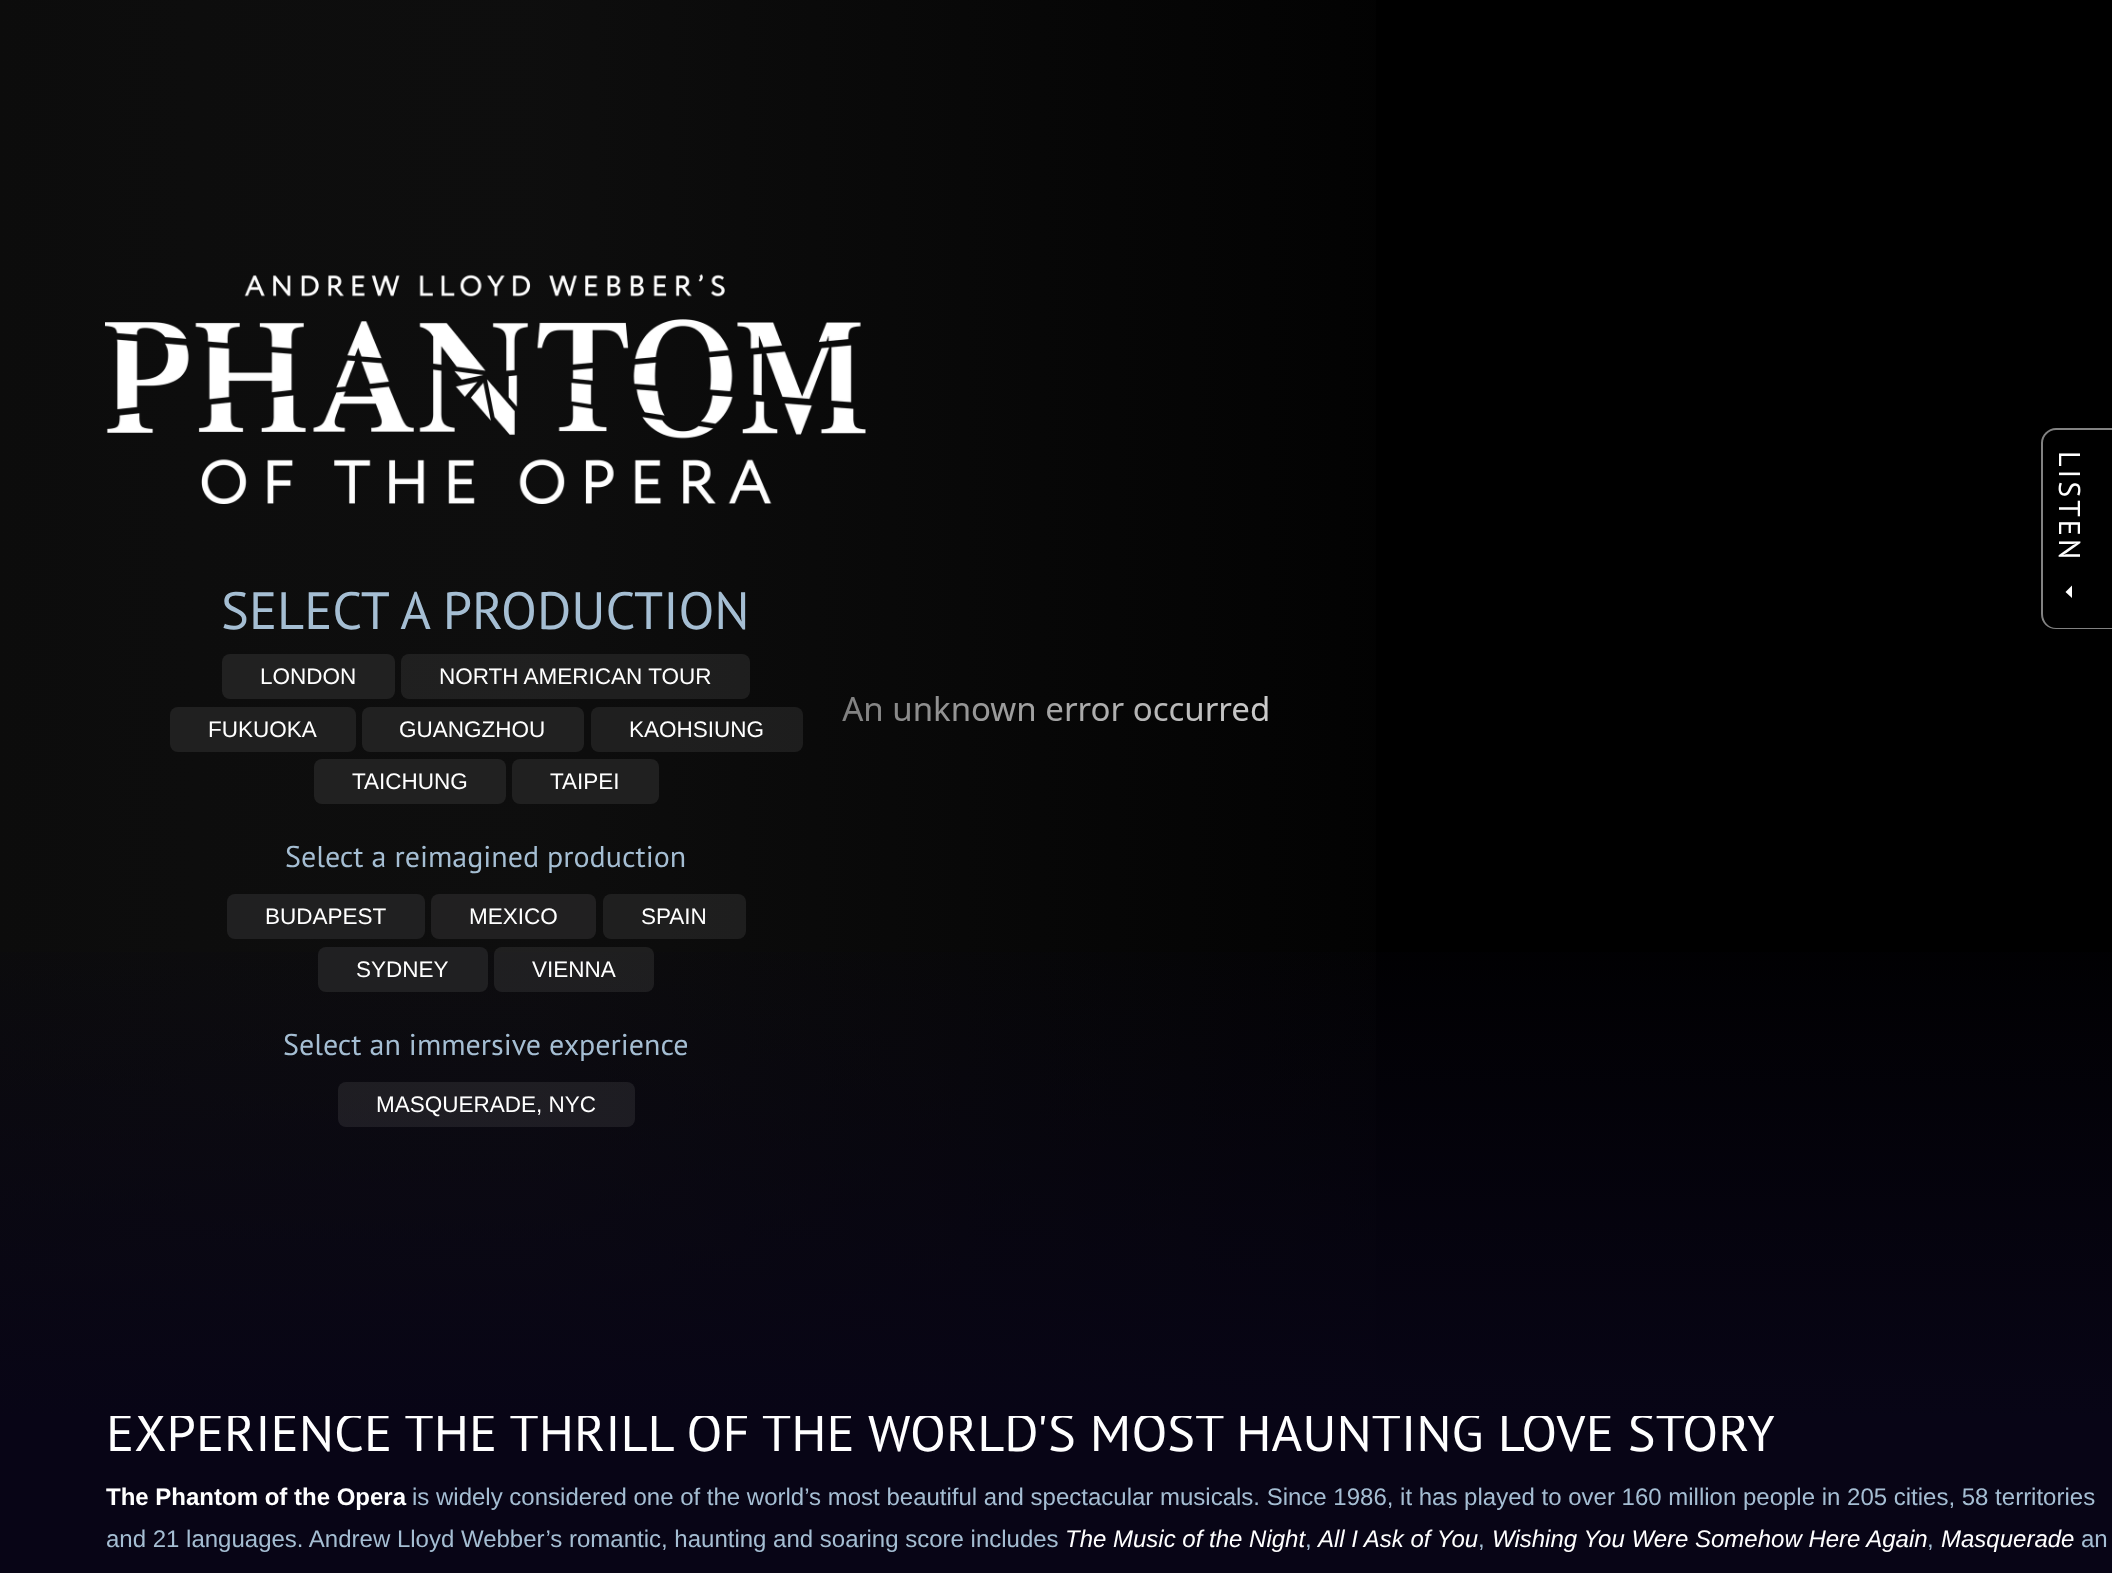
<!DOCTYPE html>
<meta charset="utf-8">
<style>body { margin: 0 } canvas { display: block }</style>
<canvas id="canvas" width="2112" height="1573"></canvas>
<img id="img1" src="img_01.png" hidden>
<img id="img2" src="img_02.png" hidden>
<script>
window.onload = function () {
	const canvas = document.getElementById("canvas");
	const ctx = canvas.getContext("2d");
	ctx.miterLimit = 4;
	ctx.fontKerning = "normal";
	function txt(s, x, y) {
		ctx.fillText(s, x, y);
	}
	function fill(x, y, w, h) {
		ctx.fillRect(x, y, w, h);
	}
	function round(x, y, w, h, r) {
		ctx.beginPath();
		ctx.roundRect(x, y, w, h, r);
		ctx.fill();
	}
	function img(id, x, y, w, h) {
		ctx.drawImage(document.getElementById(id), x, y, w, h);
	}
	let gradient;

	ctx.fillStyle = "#080516";
	fill(0, 0, 2112, 1573);
	img("img1", 14, 0, 2098, 1413);
	ctx.fillStyle = "#828282";
	ctx.beginPath();
	ctx.moveTo(2112, 428);
	ctx.lineTo(2112, 629);
	ctx.lineTo(2056, 629);
	ctx.bezierCurveTo(2048, 629, 2041, 623, 2041, 614);
	ctx.lineTo(2041, 443);
	ctx.bezierCurveTo(2041, 435, 2048, 428, 2056, 428);
	ctx.closePath();
	ctx.moveTo(2112, 430);
	ctx.lineTo(2112, 628);
	ctx.lineTo(2056, 628);
	ctx.bezierCurveTo(2049, 628, 2043, 622, 2043, 614);
	ctx.lineTo(2043, 443);
	ctx.bezierCurveTo(2043, 436, 2049, 430, 2056, 430);
	ctx.closePath();
	ctx.fill("evenodd");
	ctx.fillStyle = "#FFFFFF";
	ctx.beginPath();
	ctx.moveTo(2072, 585.5);
	ctx.lineTo(2072, 598);
	ctx.lineTo(2065.5, 592);
	ctx.closePath();
	ctx.fill();
	gradient = ctx.createLinearGradient(0, 708, 2112, 708);
	gradient.addColorStop(0, "#0C0C0C");
	gradient.addColorStop(0.25, "rgba(18, 18, 18, 0.77)");
	gradient.addColorStop(0.74, "rgba(18, 18, 18, 0)");
	ctx.fillStyle = gradient;
	fill(0, 0, 1376, 1413);
	img("img2", 105, 274, 761, 230);
	ctx.fillStyle = "#212121";
	round(222, 654, 173, 45, 8);
	ctx.fillStyle = "rgba(255, 255, 255, 0.08)";
	round(401, 654, 349, 45, 8);
	ctx.fillStyle = "#202020";
	round(170, 707, 186, 45, 8);
	ctx.fillStyle = "#212121";
	round(362, 707, 222, 45, 8);
	ctx.fillStyle = "rgba(255, 255, 255, 0.08)";
	round(591, 707, 212, 45, 8);
	ctx.fillStyle = "#212121";
	round(314, 759, 192, 45, 8);
	ctx.fillStyle = "#202020";
	round(512, 759, 147, 45, 8);
	ctx.fillStyle = "#202021";
	round(227, 894, 198, 45, 8);
	ctx.fillStyle = "#212021";
	round(431, 894, 165, 45, 8);
	ctx.fillStyle = "rgba(255, 255, 255, 0.08)";
	round(603, 894, 143, 45, 8);
	ctx.letterSpacing = "3px";
	ctx.font = "30px PT Sans";
	ctx.fillStyle = "#FFFFFF";
	ctx.save();
	ctx.translate(2059, 451);
	ctx.rotate(90 * Math.PI / 180);
	ctx.fillText("LISTEN", 0, 0);
	ctx.restore();
	ctx.letterSpacing = "0px";
	ctx.font = "52.5px PT Sans";
	ctx.fillStyle = "#A5BED3";
	txt("SELECT A PRODUCTION", 221, 629);
	ctx.font = "22.5px Liberation Sans";
	ctx.fillStyle = "#FFFFFF";
	txt("LONDON", 260, 684);
	txt("NORTH AMERICAN TOUR", 439, 684);
	txt("FUKUOKA", 208, 737);
	txt("GUANGZHOU", 399, 737);
	txt("KAOHSIUNG", 629, 737);
	txt("TAICHUNG", 352, 789);
	txt("TAIPEI", 550, 789);
	ctx.font = "30px PT Sans";
	ctx.fillStyle = "#A5BED3";
	txt("Select a reimagined production", 285, 867);
	ctx.font = "22.5px Liberation Sans";
	ctx.fillStyle = "#FFFFFF";
	txt("BUDAPEST", 265, 924);
	txt("MEXICO", 469, 924);
	txt("SPAIN", 641, 924);
	ctx.font = "52.5px PT Sans";
	txt("EXPERIENCE THE THRILL OF THE WORLD'S MOST HAUNTING LOVE STORY", 106, 1451);
	gradient = ctx.createLinearGradient(1056, 1416, 1056, 0);
	gradient.addColorStop(0, "#080516");
	gradient.addColorStop(0.37, "rgba(8, 5, 22, 0)");
	ctx.fillStyle = gradient;
	fill(0, 952, 2112, 464);
	ctx.fillStyle = "rgba(255, 255, 255, 0.08)";
	round(338, 1082, 297, 45, 8);
	ctx.font = "22.5px Liberation Sans";
	ctx.fillStyle = "#FFFFFF";
	txt("MASQUERADE, NYC", 376, 1112);
	ctx.fillStyle = "rgba(255, 255, 255, 0.08)";
	round(494, 947, 160, 45, 8);
	ctx.fillStyle = "#FFFFFF";
	txt("VIENNA", 532, 977);
	ctx.fillStyle = "#202022";
	round(318, 947, 170, 45, 8);
	ctx.fillStyle = "#FFFFFF";
	txt("SYDNEY", 356, 977);
	ctx.font = "30px PT Sans";
	ctx.fillStyle = "#A5BED3";
	txt("Select an immersive experience", 283, 1055);
	ctx.font = "bold 24px Liberation Sans";
	ctx.fillStyle = "#FFFFFF";
	txt("The Phantom of the Opera", 106, 1505);
	ctx.font = "24px Liberation Sans";
	ctx.fillStyle = "#A5BED3";
	txt("is widely considered one of the world’s most beautiful and spectacular musicals. Since 1986, it has played to over 160 million people in 205 cities, 58 territories", 412, 1505);
	txt("and 21 languages. Andrew Lloyd Webber’s romantic, haunting and soaring score includes", 106, 1547);
	ctx.font = "italic 24px Liberation Sans";
	ctx.fillStyle = "#FFFFFF";
	txt("The Music of the Night", 1065, 1547);
	ctx.font = "24px Liberation Sans";
	ctx.fillStyle = "#A5BED3";
	txt(",", 1305, 1547);
	ctx.font = "italic 24px Liberation Sans";
	ctx.fillStyle = "#FFFFFF";
	txt("All I Ask of You", 1318, 1547);
	ctx.font = "24px Liberation Sans";
	ctx.fillStyle = "#A5BED3";
	txt(",", 1478, 1547);
	ctx.font = "italic 24px Liberation Sans";
	ctx.fillStyle = "#FFFFFF";
	txt("Wishing You Were Somehow Here Again", 1492, 1547);
	ctx.font = "24px Liberation Sans";
	ctx.fillStyle = "#A5BED3";
	txt(",", 1927, 1547);
	ctx.font = "italic 24px Liberation Sans";
	ctx.fillStyle = "#FFFFFF";
	txt("Masquerade", 1941, 1547);
	ctx.font = "24px Liberation Sans";
	ctx.fillStyle = "#A5BED3";
	txt("an", 2081, 1547);
};
</script>
